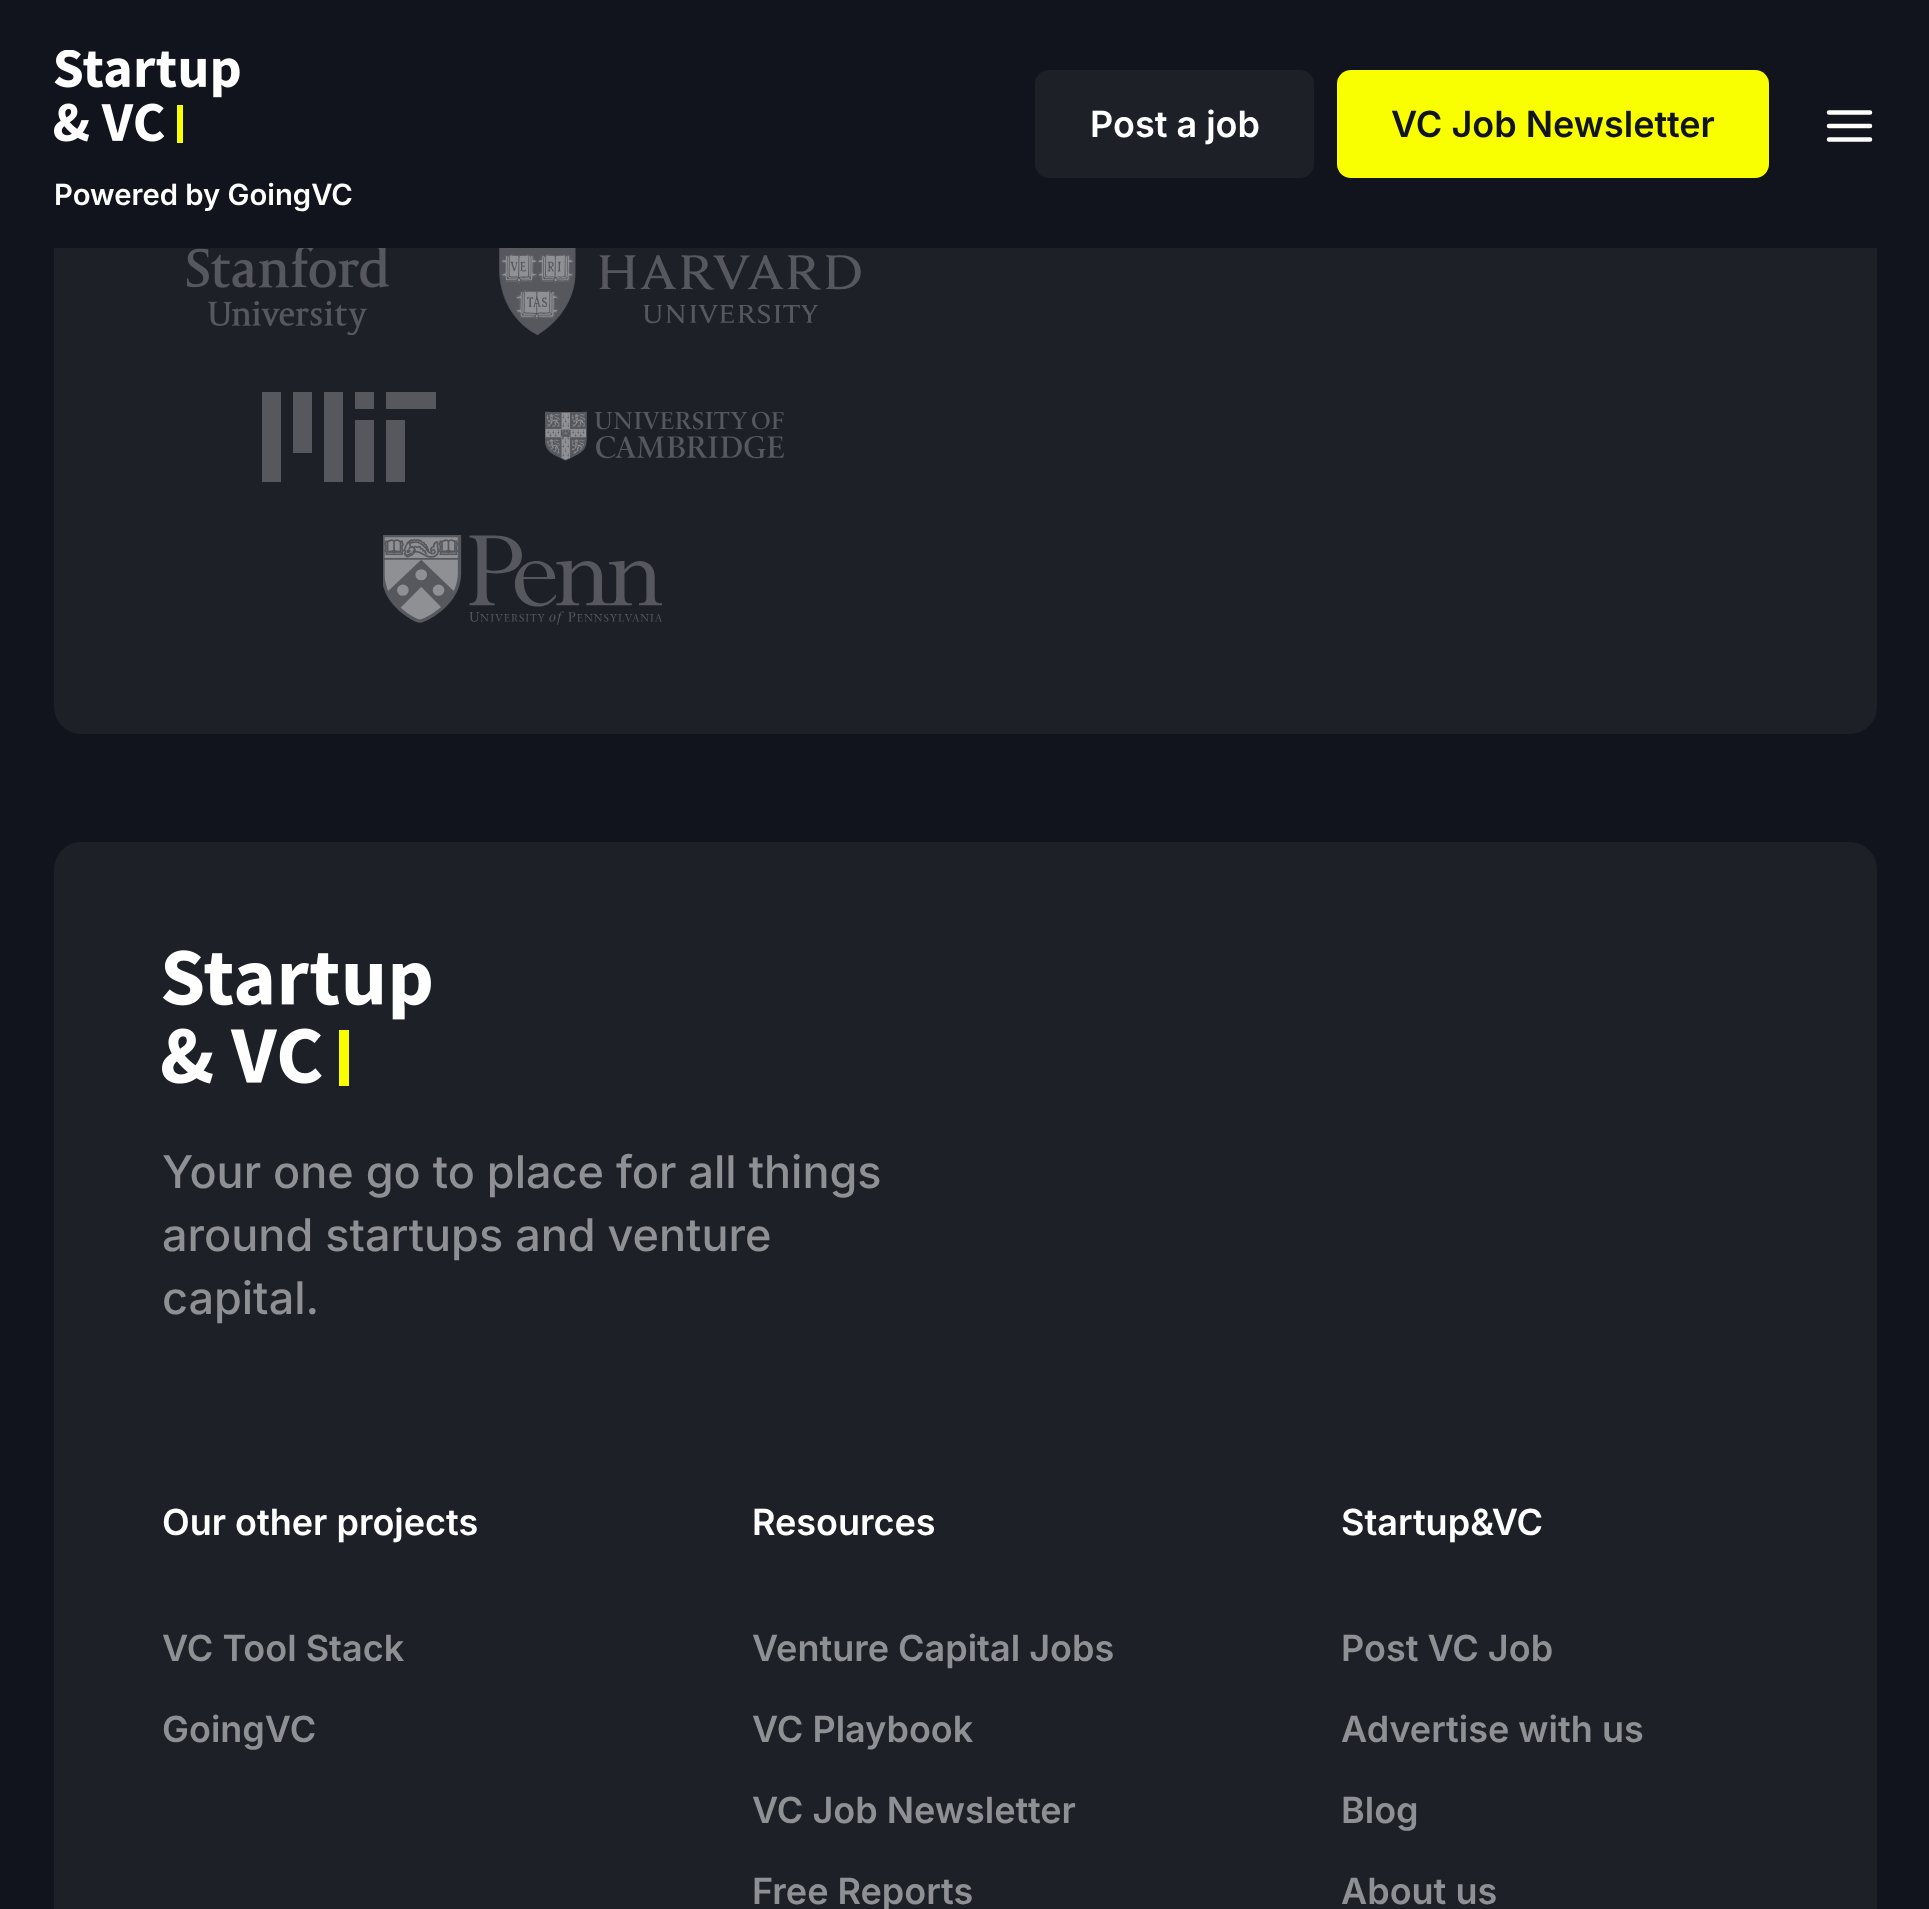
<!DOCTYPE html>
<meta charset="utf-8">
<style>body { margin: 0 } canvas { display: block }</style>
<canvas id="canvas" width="1929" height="1909"></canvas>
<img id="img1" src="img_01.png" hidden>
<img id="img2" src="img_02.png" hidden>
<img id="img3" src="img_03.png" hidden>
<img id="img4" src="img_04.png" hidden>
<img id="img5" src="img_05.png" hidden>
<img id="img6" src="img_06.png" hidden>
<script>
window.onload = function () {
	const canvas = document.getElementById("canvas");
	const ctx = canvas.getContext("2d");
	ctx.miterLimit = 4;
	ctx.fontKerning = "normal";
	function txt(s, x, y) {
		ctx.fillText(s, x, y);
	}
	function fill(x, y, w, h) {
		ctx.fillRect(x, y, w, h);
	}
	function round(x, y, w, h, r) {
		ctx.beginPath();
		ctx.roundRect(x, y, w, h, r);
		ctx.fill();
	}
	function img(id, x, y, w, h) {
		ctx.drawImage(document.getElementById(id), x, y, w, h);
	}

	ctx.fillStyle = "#12141D";
	fill(0, 0, 1929, 1909);
	ctx.fillStyle = "#1E2028";
	round(54, -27, 1823, 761, 27);
	img("img1", 187, 248, 202, 87);
	img("img2", 499, 248, 362, 88);
	ctx.fillStyle = "#56585E";
	ctx.beginPath();
	ctx.moveTo(281, 392);
	ctx.lineTo(281, 482);
	ctx.lineTo(262, 482);
	ctx.lineTo(262, 392);
	ctx.closePath();
	ctx.moveTo(312, 392);
	ctx.lineTo(312, 453);
	ctx.lineTo(293, 453);
	ctx.lineTo(293, 392);
	ctx.closePath();
	ctx.moveTo(343, 392);
	ctx.lineTo(343, 482);
	ctx.lineTo(324, 482);
	ctx.lineTo(324, 392);
	ctx.closePath();
	ctx.moveTo(374, 392);
	ctx.lineTo(374, 409);
	ctx.lineTo(355, 409);
	ctx.lineTo(355, 392);
	ctx.closePath();
	ctx.moveTo(386, 482);
	ctx.lineTo(386, 420);
	ctx.lineTo(405, 420);
	ctx.lineTo(405, 482);
	ctx.closePath();
	ctx.fill("evenodd");
	fill(355, 420, 19, 62);
	fill(386, 392, 50, 17);
	img("img3", 545, 411, 239, 50);
	img("img4", 383, 535, 279, 90);
	ctx.fillStyle = "#12141D";
	fill(54, 0, 1823, 248);
	ctx.fillStyle = "#1E2028";
	round(1035, 70, 279, 108, 14);
	ctx.fillStyle = "#FAFF00";
	round(1337, 70, 432, 108, 14);
	ctx.beginPath();
	ctx.moveTo(1829, 126);
	ctx.lineTo(1870, 126);
	ctx.moveTo(1829, 112.5);
	ctx.lineTo(1870, 112.5);
	ctx.moveTo(1829, 139.5);
	ctx.lineTo(1870, 139.5);
	ctx.strokeStyle = "#FFFFFF";
	ctx.lineWidth = 4.5;
	ctx.lineCap = "round";
	ctx.lineJoin = "round";
	ctx.stroke();
	img("img5", 54, 50, 186, 93);
	ctx.fillStyle = "#1E2028";
	round(54, 842, 1823, 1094, 27);
	img("img6", 162, 950, 269, 136);
	ctx.font = "600 36px Inter";
	ctx.fillStyle = "#FFFFFF";
	txt("Post a job", 1090, 137);
	ctx.fillStyle = "#12141D";
	txt("VC Job Newsletter", 1391, 137);
	ctx.font = "600 29.25px Inter";
	ctx.fillStyle = "#FFFFFF";
	txt("Powered by GoingVC", 54, 205);
	ctx.font = "500 45px Inter";
	ctx.fillStyle = "#8F9094";
	txt("Your one go to place for all things", 162, 1188);
	txt("around startups and venture", 162, 1251);
	txt("capital.", 162, 1314);
	ctx.font = "600 36px Inter";
	ctx.fillStyle = "#FFFFFF";
	txt("Our other projects", 162, 1535);
	ctx.fillStyle = "#8F9094";
	txt("VC Tool Stack", 162, 1661);
	txt("GoingVC", 162, 1742);
	ctx.fillStyle = "#FFFFFF";
	txt("Resources", 752, 1535);
	ctx.fillStyle = "#8F9094";
	txt("Venture Capital Jobs", 752, 1661);
	txt("VC Playbook", 752, 1742);
	txt("VC Job Newsletter", 752, 1823);
	txt("Free Reports", 752, 1904);
	ctx.fillStyle = "#FFFFFF";
	txt("Startup&VC", 1341, 1535);
	ctx.fillStyle = "#8F9094";
	txt("Post VC Job", 1341, 1661);
	txt("Advertise with us", 1341, 1742);
	txt("Blog", 1341, 1823);
	txt("About us", 1341, 1904);
};
</script>
